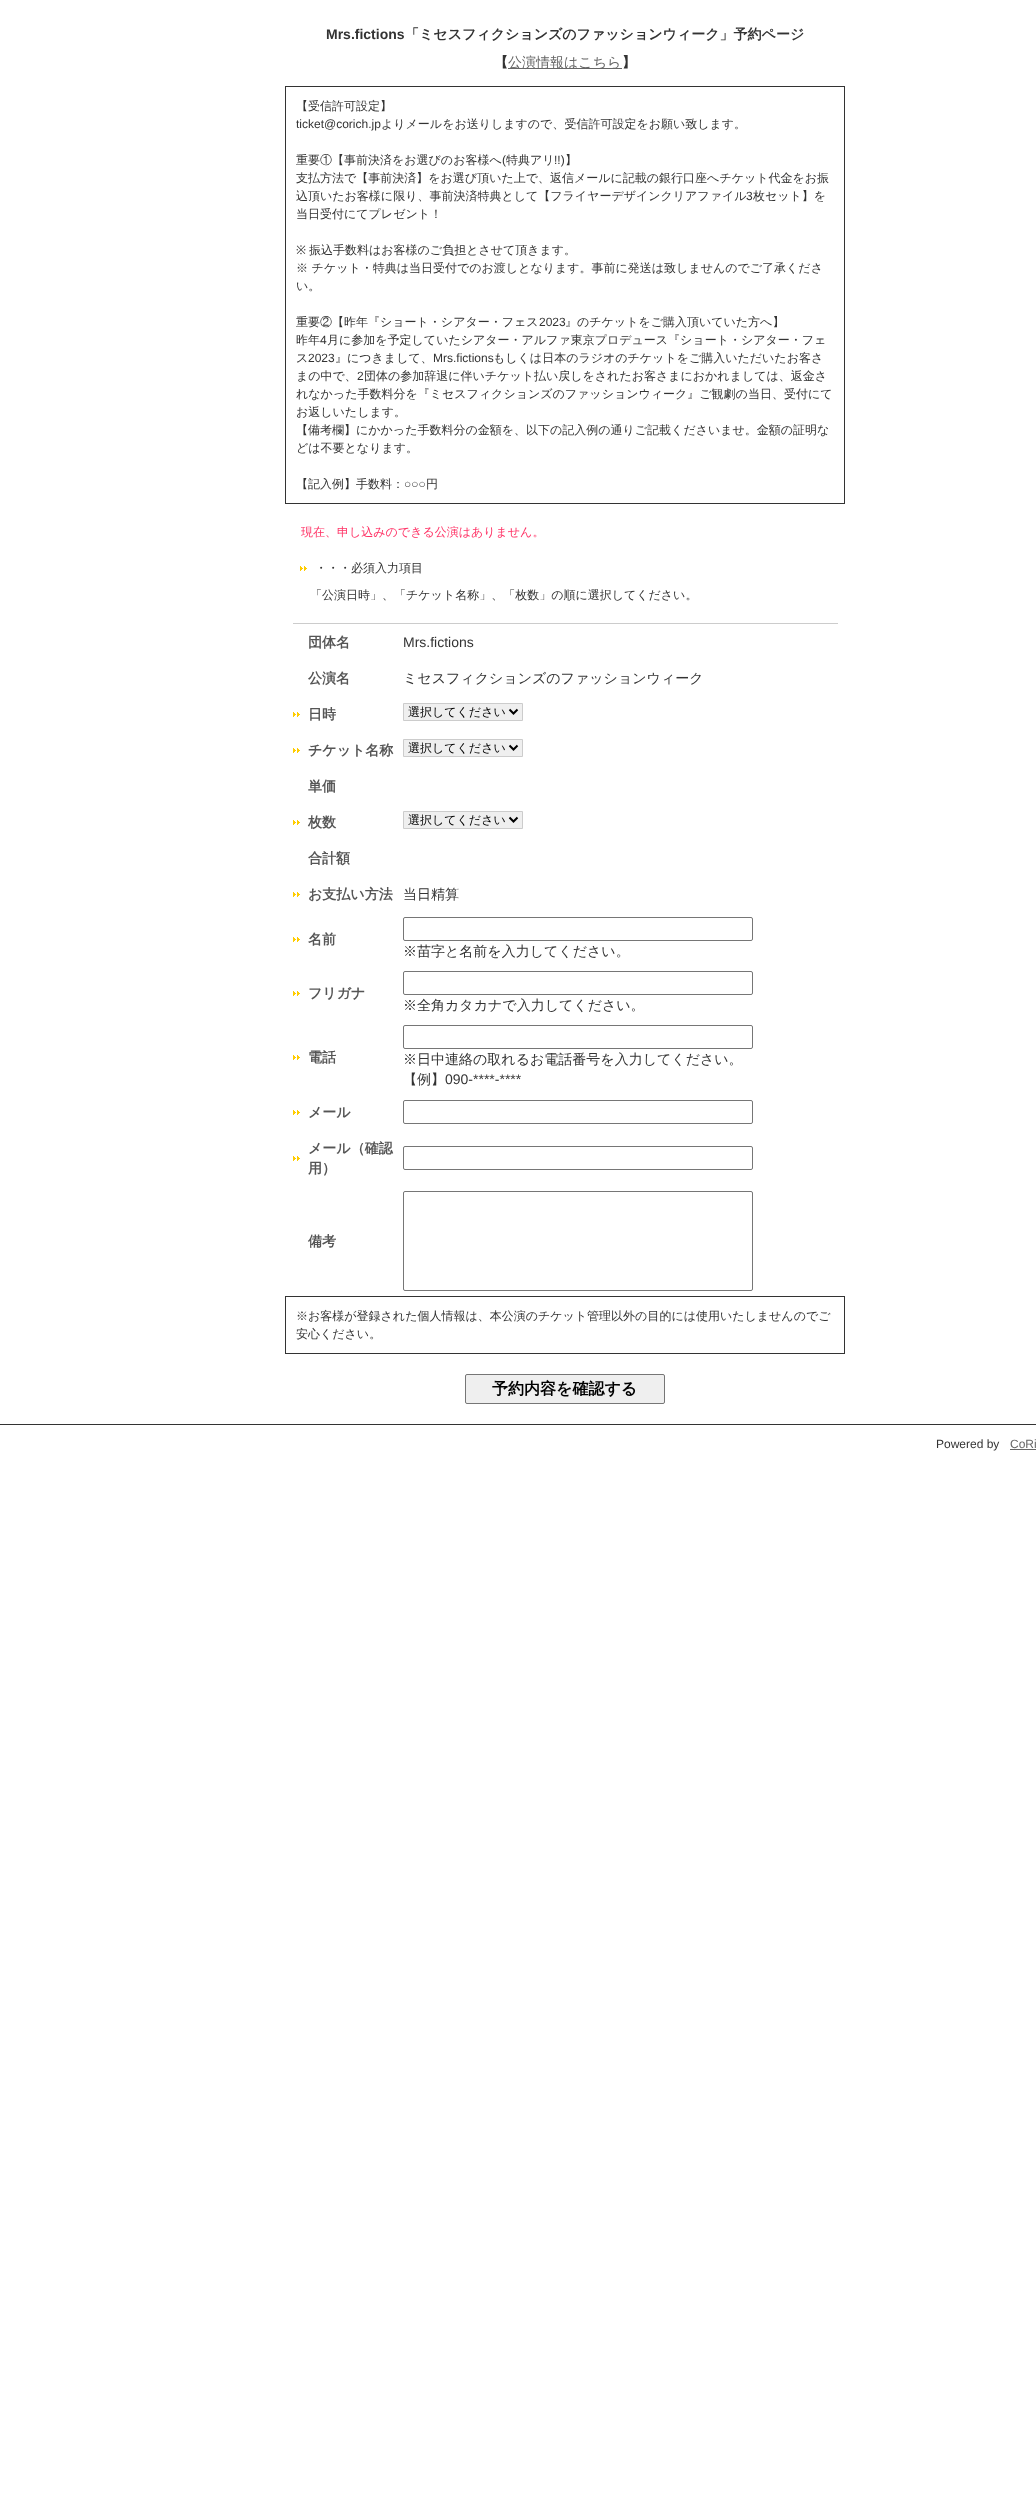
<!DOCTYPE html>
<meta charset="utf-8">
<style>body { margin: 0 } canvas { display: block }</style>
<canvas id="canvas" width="1036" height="2516"></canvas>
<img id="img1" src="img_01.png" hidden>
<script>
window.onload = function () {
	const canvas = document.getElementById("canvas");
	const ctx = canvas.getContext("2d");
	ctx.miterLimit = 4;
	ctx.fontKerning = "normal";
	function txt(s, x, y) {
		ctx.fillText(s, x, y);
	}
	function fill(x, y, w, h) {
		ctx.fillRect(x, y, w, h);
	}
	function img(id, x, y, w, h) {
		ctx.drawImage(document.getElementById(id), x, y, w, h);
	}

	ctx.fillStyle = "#FFFFFF";
	fill(0, 0, 1036, 2516);
	ctx.fillStyle = "#666666";
	fill(508, 68, 114, 1);
	ctx.strokeStyle = "#333333";
	ctx.strokeRect(285.5, 86.5, 559, 417);
	img("img1", 300, 566, 7, 5);
	ctx.fillStyle = "#CCCCCC";
	fill(293, 623, 545, 1);
	img("img1", 293, 712, 7, 5);
	ctx.fillStyle = "#EFEFEF";
	ctx.beginPath();
	ctx.rect(403.5, 703.5, 119, 17);
	ctx.fill();
	ctx.strokeStyle = "#CCCCCC";
	ctx.stroke();
	ctx.beginPath();
	ctx.moveTo(509.5, 709.5);
	ctx.lineTo(513.5, 713.5);
	ctx.lineTo(517.5, 709.5);
	ctx.strokeStyle = "#000000";
	ctx.lineWidth = 2;
	ctx.stroke();
	img("img1", 293, 748, 7, 5);
	ctx.beginPath();
	ctx.rect(403.5, 739.5, 119, 17);
	ctx.fill();
	ctx.strokeStyle = "#CCCCCC";
	ctx.lineWidth = 1;
	ctx.stroke();
	ctx.beginPath();
	ctx.moveTo(509.5, 745.5);
	ctx.lineTo(513.5, 749.5);
	ctx.lineTo(517.5, 745.5);
	ctx.strokeStyle = "#000000";
	ctx.lineWidth = 2;
	ctx.stroke();
	img("img1", 293, 820, 7, 5);
	ctx.beginPath();
	ctx.rect(403.5, 811.5, 119, 17);
	ctx.fill();
	ctx.strokeStyle = "#CCCCCC";
	ctx.lineWidth = 1;
	ctx.stroke();
	ctx.beginPath();
	ctx.moveTo(509.5, 817.5);
	ctx.lineTo(513.5, 821.5);
	ctx.lineTo(517.5, 817.5);
	ctx.strokeStyle = "#000000";
	ctx.lineWidth = 2;
	ctx.stroke();
	img("img1", 293, 892, 7, 5);
	img("img1", 293, 937, 7, 5);
	ctx.beginPath();
	ctx.roundRect(403.5, 917.5, 349, 23, 1.5);
	ctx.strokeStyle = "#767676";
	ctx.lineWidth = 1;
	ctx.stroke();
	img("img1", 293, 991, 7, 5);
	ctx.beginPath();
	ctx.roundRect(403.5, 971.5, 349, 23, 1.5);
	ctx.stroke();
	img("img1", 293, 1055, 7, 5);
	ctx.beginPath();
	ctx.roundRect(403.5, 1025.5, 349, 23, 1.5);
	ctx.stroke();
	img("img1", 293, 1110, 7, 5);
	ctx.beginPath();
	ctx.roundRect(403.5, 1100.5, 349, 23, 1.5);
	ctx.stroke();
	img("img1", 293, 1156, 7, 5);
	ctx.beginPath();
	ctx.roundRect(403.5, 1146.5, 349, 23, 1.5);
	ctx.stroke();
	ctx.beginPath();
	ctx.roundRect(403.5, 1191.5, 349, 99, 1.5);
	ctx.stroke();
	ctx.strokeStyle = "#333333";
	ctx.strokeRect(285.5, 1296.5, 559, 57);
	ctx.beginPath();
	ctx.roundRect(465.5, 1374.5, 199, 29, 1.5);
	ctx.fill();
	ctx.strokeStyle = "#767676";
	ctx.stroke();
	ctx.fillStyle = "#333333";
	fill(0, 1424, 1036, 1);
	ctx.fillStyle = "#666666";
	fill(1010, 1449, 26, 1);
	ctx.font = "bold 14px Liberation Sans";
	ctx.fillStyle = "#333333";
	txt("Mrs.fictions", 326, 39);
	ctx.font = "bold 14px WenQuanYi Zen Hei";
	txt("「ミセスフィクションズのファッションウィーク」予約ページ", 405, 39);
	txt("【", 494, 67);
	ctx.font = "500 14px WenQuanYi Zen Hei";
	ctx.fillStyle = "#666666";
	txt("公演情報はこちら", 508, 67);
	ctx.font = "bold 14px WenQuanYi Zen Hei";
	ctx.fillStyle = "#333333";
	txt("】", 622, 67);
	ctx.font = "500 12px WenQuanYi Zen Hei";
	txt("【受信許可設定】", 296, 110);
	ctx.font = "12px Liberation Sans";
	txt("ticket@corich.jp", 296, 128);
	ctx.font = "500 12px WenQuanYi Zen Hei";
	txt("よりメールをお送りしますので、受信許可設定をお願い致します。", 381, 128);
	txt("重要①【事前決済をお選びのお客様へ", 296, 164);
	ctx.font = "12px Liberation Sans";
	txt("(", 502, 164);
	ctx.font = "500 12px WenQuanYi Zen Hei";
	txt("特典アリ", 506, 164);
	ctx.font = "12px Liberation Sans";
	txt("!!)", 554, 164);
	ctx.font = "500 12px WenQuanYi Zen Hei";
	txt("】", 565, 164);
	txt("支払方法で【事前決済】をお選び頂いた上で、返信メールに記載の銀行口座へチケット代金をお振", 296, 182);
	txt("込頂いたお客様に限り、事前決済特典として【フライヤーデザインクリアファイル", 296, 200);
	ctx.font = "12px Liberation Sans";
	txt("3", 746, 200);
	ctx.font = "500 12px WenQuanYi Zen Hei";
	txt("枚セット】を", 753, 200);
	txt("当日受付にてプレゼント！", 296, 218);
	ctx.font = "12px Noto Sans";
	txt("※", 296, 254);
	ctx.font = "500 12px WenQuanYi Zen Hei";
	txt("振込手数料はお客様のご負担とさせて頂きます。", 309, 254);
	txt("※ チケット・特典は当日受付でのお渡しとなります。事前に発送は致しませんのでご了承くださ", 296, 272);
	txt("い。", 296, 290);
	txt("重要②【昨年『ショート・シアター・フェス", 296, 326);
	ctx.font = "12px Liberation Sans";
	txt("2023", 539, 326);
	ctx.font = "500 12px WenQuanYi Zen Hei";
	txt("』のチケットをご購入頂いていた方へ】", 565, 326);
	txt("昨年", 296, 344);
	ctx.font = "12px Liberation Sans";
	txt("4", 320, 344);
	ctx.font = "500 12px WenQuanYi Zen Hei";
	txt("月に参加を予定していたシアター・アルファ東京プロデュース『ショート・シアター・フェ", 327, 344);
	txt("ス", 296, 362);
	ctx.font = "12px Liberation Sans";
	txt("2023", 308, 362);
	ctx.font = "500 12px WenQuanYi Zen Hei";
	txt("』につきまして、", 335, 362);
	ctx.font = "12px Liberation Sans";
	txt("Mrs.fictions", 433, 362);
	ctx.font = "500 12px WenQuanYi Zen Hei";
	txt("もしくは日本のラジオのチケットをご購入いただいたお客さ", 493, 362);
	txt("まの中で、", 296, 380);
	ctx.font = "12px Liberation Sans";
	txt("2", 357, 380);
	ctx.font = "500 12px WenQuanYi Zen Hei";
	txt("団体の参加辞退に伴いチケット払い戻しをされたお客さまにおかれましては、返金さ", 364, 380);
	txt("れなかった手数料分を『ミセスフィクションズのファッションウィーク』ご観劇の当日、受付にて", 296, 398);
	txt("お返しいたします。", 296, 416);
	txt("【備考欄】にかかった手数料分の金額を、以下の記入例の通りご記載くださいませ。金額の証明な", 296, 434);
	txt("どは不要となります。", 296, 452);
	txt("【記入例】手数料：", 296, 488);
	ctx.font = "12px Liberation Sans";
	txt("○○○", 404, 488);
	ctx.font = "500 12px WenQuanYi Zen Hei";
	txt("円", 426, 488);
	ctx.fillStyle = "#FF3366";
	txt("現在、申し込みのできる公演はありません。", 301, 536);
	ctx.fillStyle = "#333333";
	txt("・・・必須入力項目", 315, 572);
	txt("「公演日時」、「チケット名称」、「枚数」の順に選択してください。", 310, 599);
	ctx.font = "bold 14px WenQuanYi Zen Hei";
	ctx.fillStyle = "#555555";
	txt("団体名", 308, 647);
	ctx.font = "14px Liberation Sans";
	ctx.fillStyle = "#333333";
	txt("Mrs.fictions", 403, 647);
	ctx.font = "bold 14px WenQuanYi Zen Hei";
	ctx.fillStyle = "#555555";
	txt("公演名", 308, 683);
	ctx.font = "500 14px WenQuanYi Zen Hei";
	ctx.fillStyle = "#333333";
	txt("ミセスフィクションズのファッションウィーク", 403, 683);
	ctx.font = "bold 14px WenQuanYi Zen Hei";
	ctx.fillStyle = "#555555";
	txt("日時", 308, 719);
	ctx.font = "500 12px WenQuanYi Zen Hei";
	ctx.fillStyle = "#000000";
	txt("選択してください", 408, 716);
	ctx.font = "bold 14px WenQuanYi Zen Hei";
	ctx.fillStyle = "#555555";
	txt("チケット名称", 308, 755);
	ctx.font = "500 12px WenQuanYi Zen Hei";
	ctx.fillStyle = "#000000";
	txt("選択してください", 408, 752);
	ctx.font = "bold 14px WenQuanYi Zen Hei";
	ctx.fillStyle = "#555555";
	txt("単価", 308, 791);
	txt("枚数", 308, 827);
	ctx.font = "500 12px WenQuanYi Zen Hei";
	ctx.fillStyle = "#000000";
	txt("選択してください", 408, 824);
	ctx.font = "bold 14px WenQuanYi Zen Hei";
	ctx.fillStyle = "#555555";
	txt("合計額", 308, 863);
	txt("お支払い方法", 308, 899);
	ctx.font = "500 14px WenQuanYi Zen Hei";
	ctx.fillStyle = "#333333";
	txt("当日精算", 403, 899);
	ctx.font = "bold 14px WenQuanYi Zen Hei";
	ctx.fillStyle = "#555555";
	txt("名前", 308, 944);
	ctx.font = "500 14px WenQuanYi Zen Hei";
	ctx.fillStyle = "#333333";
	txt("※苗字と名前を入力してください。", 403, 956);
	ctx.font = "bold 14px WenQuanYi Zen Hei";
	ctx.fillStyle = "#555555";
	txt("フリガナ", 308, 998);
	ctx.font = "500 14px WenQuanYi Zen Hei";
	ctx.fillStyle = "#333333";
	txt("※全角カタカナで入力してください。", 403, 1010);
	ctx.font = "bold 14px WenQuanYi Zen Hei";
	ctx.fillStyle = "#555555";
	txt("電話", 308, 1062);
	ctx.font = "500 14px WenQuanYi Zen Hei";
	ctx.fillStyle = "#333333";
	txt("※日中連絡の取れるお電話番号を入力してください。", 403, 1064);
	txt("【例】", 403, 1084);
	ctx.font = "14px Liberation Sans";
	txt("090-****-****", 445, 1084);
	ctx.font = "bold 14px WenQuanYi Zen Hei";
	ctx.fillStyle = "#555555";
	txt("メール", 308, 1117);
	txt("メール（確認", 308, 1153);
	txt("用）", 308, 1173);
	txt("備考", 308, 1246);
	ctx.font = "500 12px WenQuanYi Zen Hei";
	ctx.fillStyle = "#333333";
	txt("※お客様が登録された個人情報は、本公演のチケット管理以外の目的には使用いたしませんのでご", 296, 1320);
	txt("安心ください。", 296, 1338);
	ctx.font = "bold 16px WenQuanYi Zen Hei";
	ctx.fillStyle = "#000000";
	txt("予約内容を確認する", 492, 1394);
	ctx.font = "12px Liberation Sans";
	ctx.fillStyle = "#333333";
	txt("Powered by", 936, 1448);
	ctx.fillStyle = "#666666";
	txt("CoRi", 1010, 1448);
};
</script>
